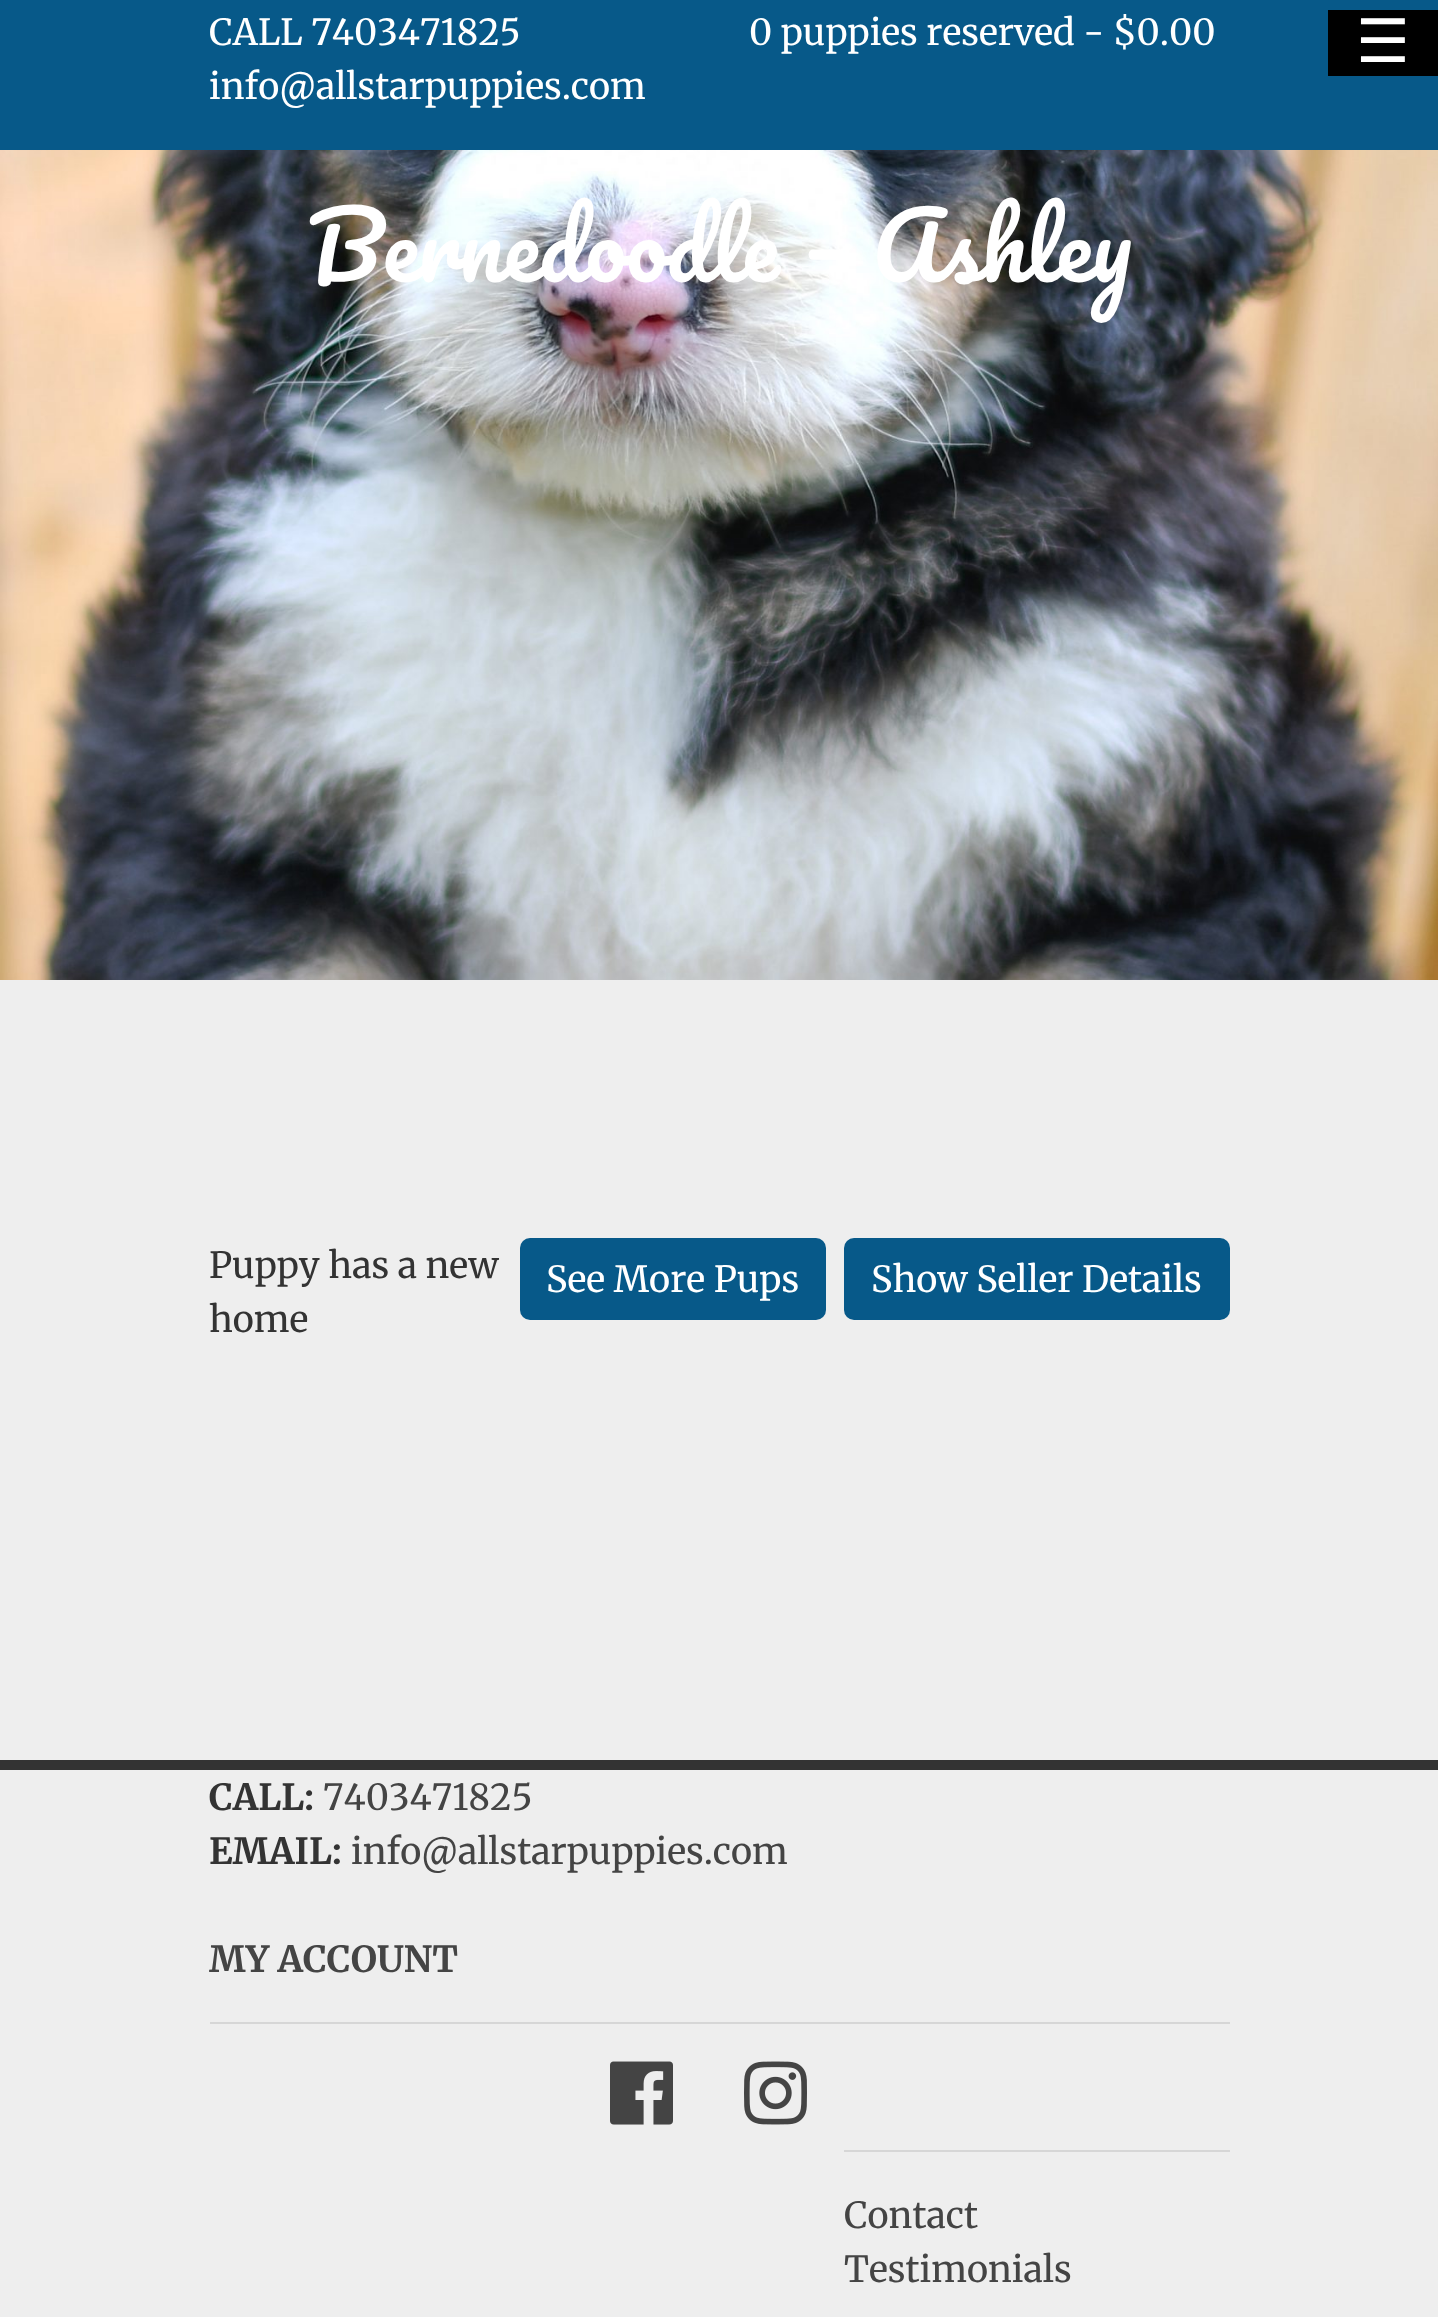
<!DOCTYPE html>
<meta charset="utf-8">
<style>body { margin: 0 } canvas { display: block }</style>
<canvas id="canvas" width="1438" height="2317"></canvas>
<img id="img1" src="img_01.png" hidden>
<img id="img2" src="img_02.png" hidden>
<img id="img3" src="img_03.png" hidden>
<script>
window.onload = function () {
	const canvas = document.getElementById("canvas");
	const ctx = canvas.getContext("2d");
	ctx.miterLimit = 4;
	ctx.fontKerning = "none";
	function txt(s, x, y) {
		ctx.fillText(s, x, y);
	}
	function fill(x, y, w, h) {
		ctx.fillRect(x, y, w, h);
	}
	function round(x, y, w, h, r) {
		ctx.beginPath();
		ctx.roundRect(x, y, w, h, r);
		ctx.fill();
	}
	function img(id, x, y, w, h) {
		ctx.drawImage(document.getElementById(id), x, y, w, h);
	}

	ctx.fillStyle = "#EEEEEE";
	fill(0, 0, 1438, 2317);
	ctx.fillStyle = "#075989";
	fill(0, 0, 1438, 150);
	ctx.fillStyle = "#000000";
	fill(1328, 10, 110, 66);
	img("img1", 0, 150, 1438, 830);
	ctx.fillStyle = "#075989";
	round(520, 1238, 306, 82, 10);
	round(844, 1238, 386, 82, 10);
	ctx.fillStyle = "#333333";
	fill(0, 1760, 1438, 10);
	ctx.fillStyle = "#D6D6D6";
	fill(210, 2022, 1020, 2);
	img("img2", 610, 2061, 63, 64);
	img("img3", 744, 2061, 63, 64);
	fill(844, 2150, 386, 2);
	ctx.font = "36px Merriweather";
	ctx.fillStyle = "#FFFFFF";
	txt("CALL 7403471825", 209, 45);
	txt("info@allstarpuppies.com", 209, 99);
	txt("0 puppies reserved - $0.00", 749, 45);
	ctx.font = "60px DejaVu Sans";
	txt("☰", 1356, 62);
	ctx.wordSpacing = "1px";
	ctx.font = "90px Pacifico";
	txt("Bernedoodle – Ashley", 308, 282);
	ctx.wordSpacing = "0px";
	ctx.font = "36px Merriweather";
	ctx.fillStyle = "#333333";
	txt("Puppy has a new", 209, 1278);
	txt("home", 209, 1332);
	ctx.fillStyle = "#FFFFFF";
	txt("See More Pups", 546, 1292);
	txt("Show Seller Details", 871, 1292);
	ctx.font = "bold 36px Merriweather";
	ctx.fillStyle = "#333333";
	txt("CALL:", 209, 1810);
	ctx.font = "36px Merriweather";
	ctx.fillStyle = "#444444";
	txt("7403471825", 323, 1810);
	ctx.font = "bold 36px Merriweather";
	ctx.fillStyle = "#333333";
	txt("EMAIL:", 209, 1864);
	ctx.font = "36px Merriweather";
	ctx.fillStyle = "#444444";
	txt("info@allstarpuppies.com", 351, 1864);
	ctx.font = "bold 36px Merriweather";
	txt("MY ACCOUNT", 209, 1972);
	ctx.font = "36px Merriweather";
	txt("Contact", 844, 2228);
	txt("Testimonials", 844, 2282);
};
</script>
